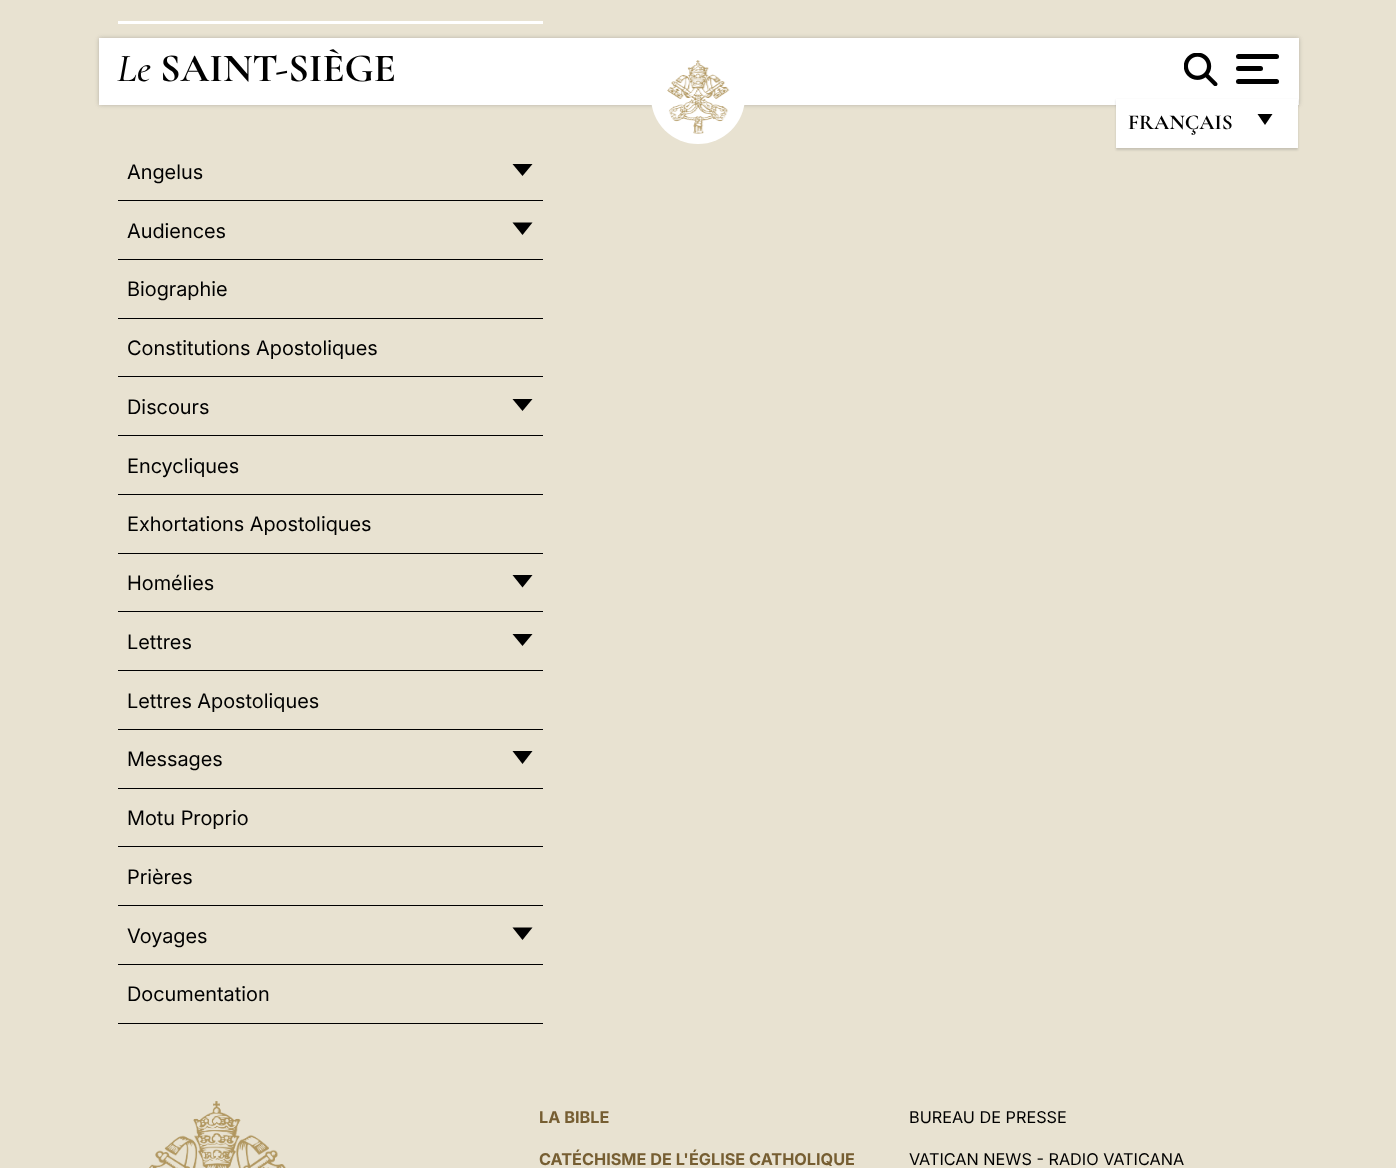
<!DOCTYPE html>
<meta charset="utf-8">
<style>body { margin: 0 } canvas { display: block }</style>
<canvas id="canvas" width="1396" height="1168"></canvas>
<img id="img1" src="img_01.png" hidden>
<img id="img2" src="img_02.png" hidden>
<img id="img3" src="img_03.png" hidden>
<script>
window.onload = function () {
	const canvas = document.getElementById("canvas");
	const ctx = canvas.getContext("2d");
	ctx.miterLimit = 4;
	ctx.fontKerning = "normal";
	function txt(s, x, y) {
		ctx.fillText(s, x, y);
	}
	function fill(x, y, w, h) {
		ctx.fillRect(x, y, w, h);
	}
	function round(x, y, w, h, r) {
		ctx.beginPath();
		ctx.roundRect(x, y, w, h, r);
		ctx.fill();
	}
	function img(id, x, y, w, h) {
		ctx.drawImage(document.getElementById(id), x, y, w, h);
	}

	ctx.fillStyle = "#E8E2D1";
	fill(0, 0, 1396, 1168);
	ctx.fillStyle = "rgba(73, 73, 73, 0.31)";
	ctx.filter = "blur(2px)";
	ctx.beginPath();
	ctx.rect(99, 38, 1200, 67);
	ctx.fill();
	ctx.filter = "none";
	ctx.fillStyle = "#FFFFFF";
	fill(99, 38, 1200, 67);
	ctx.beginPath();
	ctx.arc(698, 97, 47, 0, Math.PI * 2);
	ctx.fill();
	img("img1", 667, 60, 63, 74);
	img("img2", 1184, 53, 34, 33);
	ctx.fillStyle = "#000000";
	round(1236, 54, 43, 5, 2.5);
	round(1236, 66, 27, 5, 2.5);
	round(1236, 79, 43, 5, 2.5);
	ctx.fillStyle = "rgba(85, 85, 85, 0.23)";
	ctx.filter = "blur(1px)";
	ctx.beginPath();
	ctx.rect(1116, 100, 182, 50);
	ctx.fill();
	ctx.filter = "none";
	ctx.fillStyle = "#FFFFFF";
	fill(1116, 99, 182, 49);
	ctx.fillStyle = "#000000";
	ctx.beginPath();
	ctx.moveTo(1257.5, 114);
	ctx.lineTo(1272.5, 114);
	ctx.lineTo(1265, 125);
	ctx.closePath();
	ctx.fill();
	ctx.fillStyle = "#FFFFFF";
	fill(118, 21, 425, 3);
	ctx.fillStyle = "#000000";
	fill(118, 200, 425, 1);
	ctx.beginPath();
	ctx.moveTo(512.5, 164);
	ctx.lineTo(532.5, 164);
	ctx.lineTo(522.5, 176);
	ctx.closePath();
	ctx.fill();
	fill(118, 259, 425, 1);
	ctx.beginPath();
	ctx.moveTo(512.5, 222.5);
	ctx.lineTo(532.5, 222.5);
	ctx.lineTo(522.5, 235);
	ctx.closePath();
	ctx.fill();
	fill(118, 318, 425, 1);
	fill(118, 376, 425, 1);
	fill(118, 435, 425, 1);
	ctx.beginPath();
	ctx.moveTo(512.5, 399);
	ctx.lineTo(532.5, 399);
	ctx.lineTo(522.5, 411);
	ctx.closePath();
	ctx.fill();
	fill(118, 494, 425, 1);
	fill(118, 553, 425, 1);
	fill(118, 611, 425, 1);
	ctx.beginPath();
	ctx.moveTo(512.5, 575);
	ctx.lineTo(532.5, 575);
	ctx.lineTo(522.5, 587.5);
	ctx.closePath();
	ctx.fill();
	fill(118, 670, 425, 1);
	ctx.beginPath();
	ctx.moveTo(512.5, 634);
	ctx.lineTo(532.5, 634);
	ctx.lineTo(522.5, 646);
	ctx.closePath();
	ctx.fill();
	fill(118, 729, 425, 1);
	fill(118, 788, 425, 1);
	ctx.beginPath();
	ctx.moveTo(512.5, 751);
	ctx.lineTo(532.5, 751);
	ctx.lineTo(522.5, 764);
	ctx.closePath();
	ctx.fill();
	fill(118, 846, 425, 1);
	fill(118, 905, 425, 1);
	fill(118, 964, 425, 1);
	ctx.beginPath();
	ctx.moveTo(512.5, 927.5);
	ctx.lineTo(532.5, 927.5);
	ctx.lineTo(522.5, 940);
	ctx.closePath();
	ctx.fill();
	fill(118, 1023, 425, 1);
	img("img3", 149, 1101, 137, 67);
	ctx.font = "italic 500 40px Cormorant Garamond";
	txt("Le", 117, 81);
	ctx.font = "bold 40px Cormorant Garamond";
	txt("SAINT-SIÈGE", 160, 81);
	ctx.font = "bold 21.25px Cormorant Garamond";
	txt("FRANÇAIS", 1128, 129);
	ctx.font = "20px 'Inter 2'";
	txt("Angelus", 127, 179);
	txt("Audiences", 127, 238);
	txt("Biographie", 127, 296);
	txt("Constitutions Apostoliques", 127, 355);
	txt("Discours", 127, 414);
	txt("Encycliques", 127, 473);
	txt("Exhortations Apostoliques", 127, 531);
	txt("Homélies", 127, 590);
	txt("Lettres", 127, 649);
	txt("Lettres Apostoliques", 127, 708);
	txt("Messages", 127, 766);
	txt("Motu Proprio", 127, 825);
	txt("Prières", 127, 884);
	txt("Voyages", 127, 943);
	txt("Documentation", 127, 1001);
	ctx.font = "bold 16.25px Inter";
	ctx.fillStyle = "#765E32";
	txt("LA BIBLE", 539, 1123);
	txt("CATÉCHISME DE L'ÉGLISE CATHOLIQUE", 539, 1165);
	ctx.font = "16.25px Inter";
	ctx.fillStyle = "#000000";
	txt("BUREAU DE PRESSE", 909, 1123);
	txt("VATICAN NEWS - RADIO VATICANA", 909, 1165);
};
</script>
